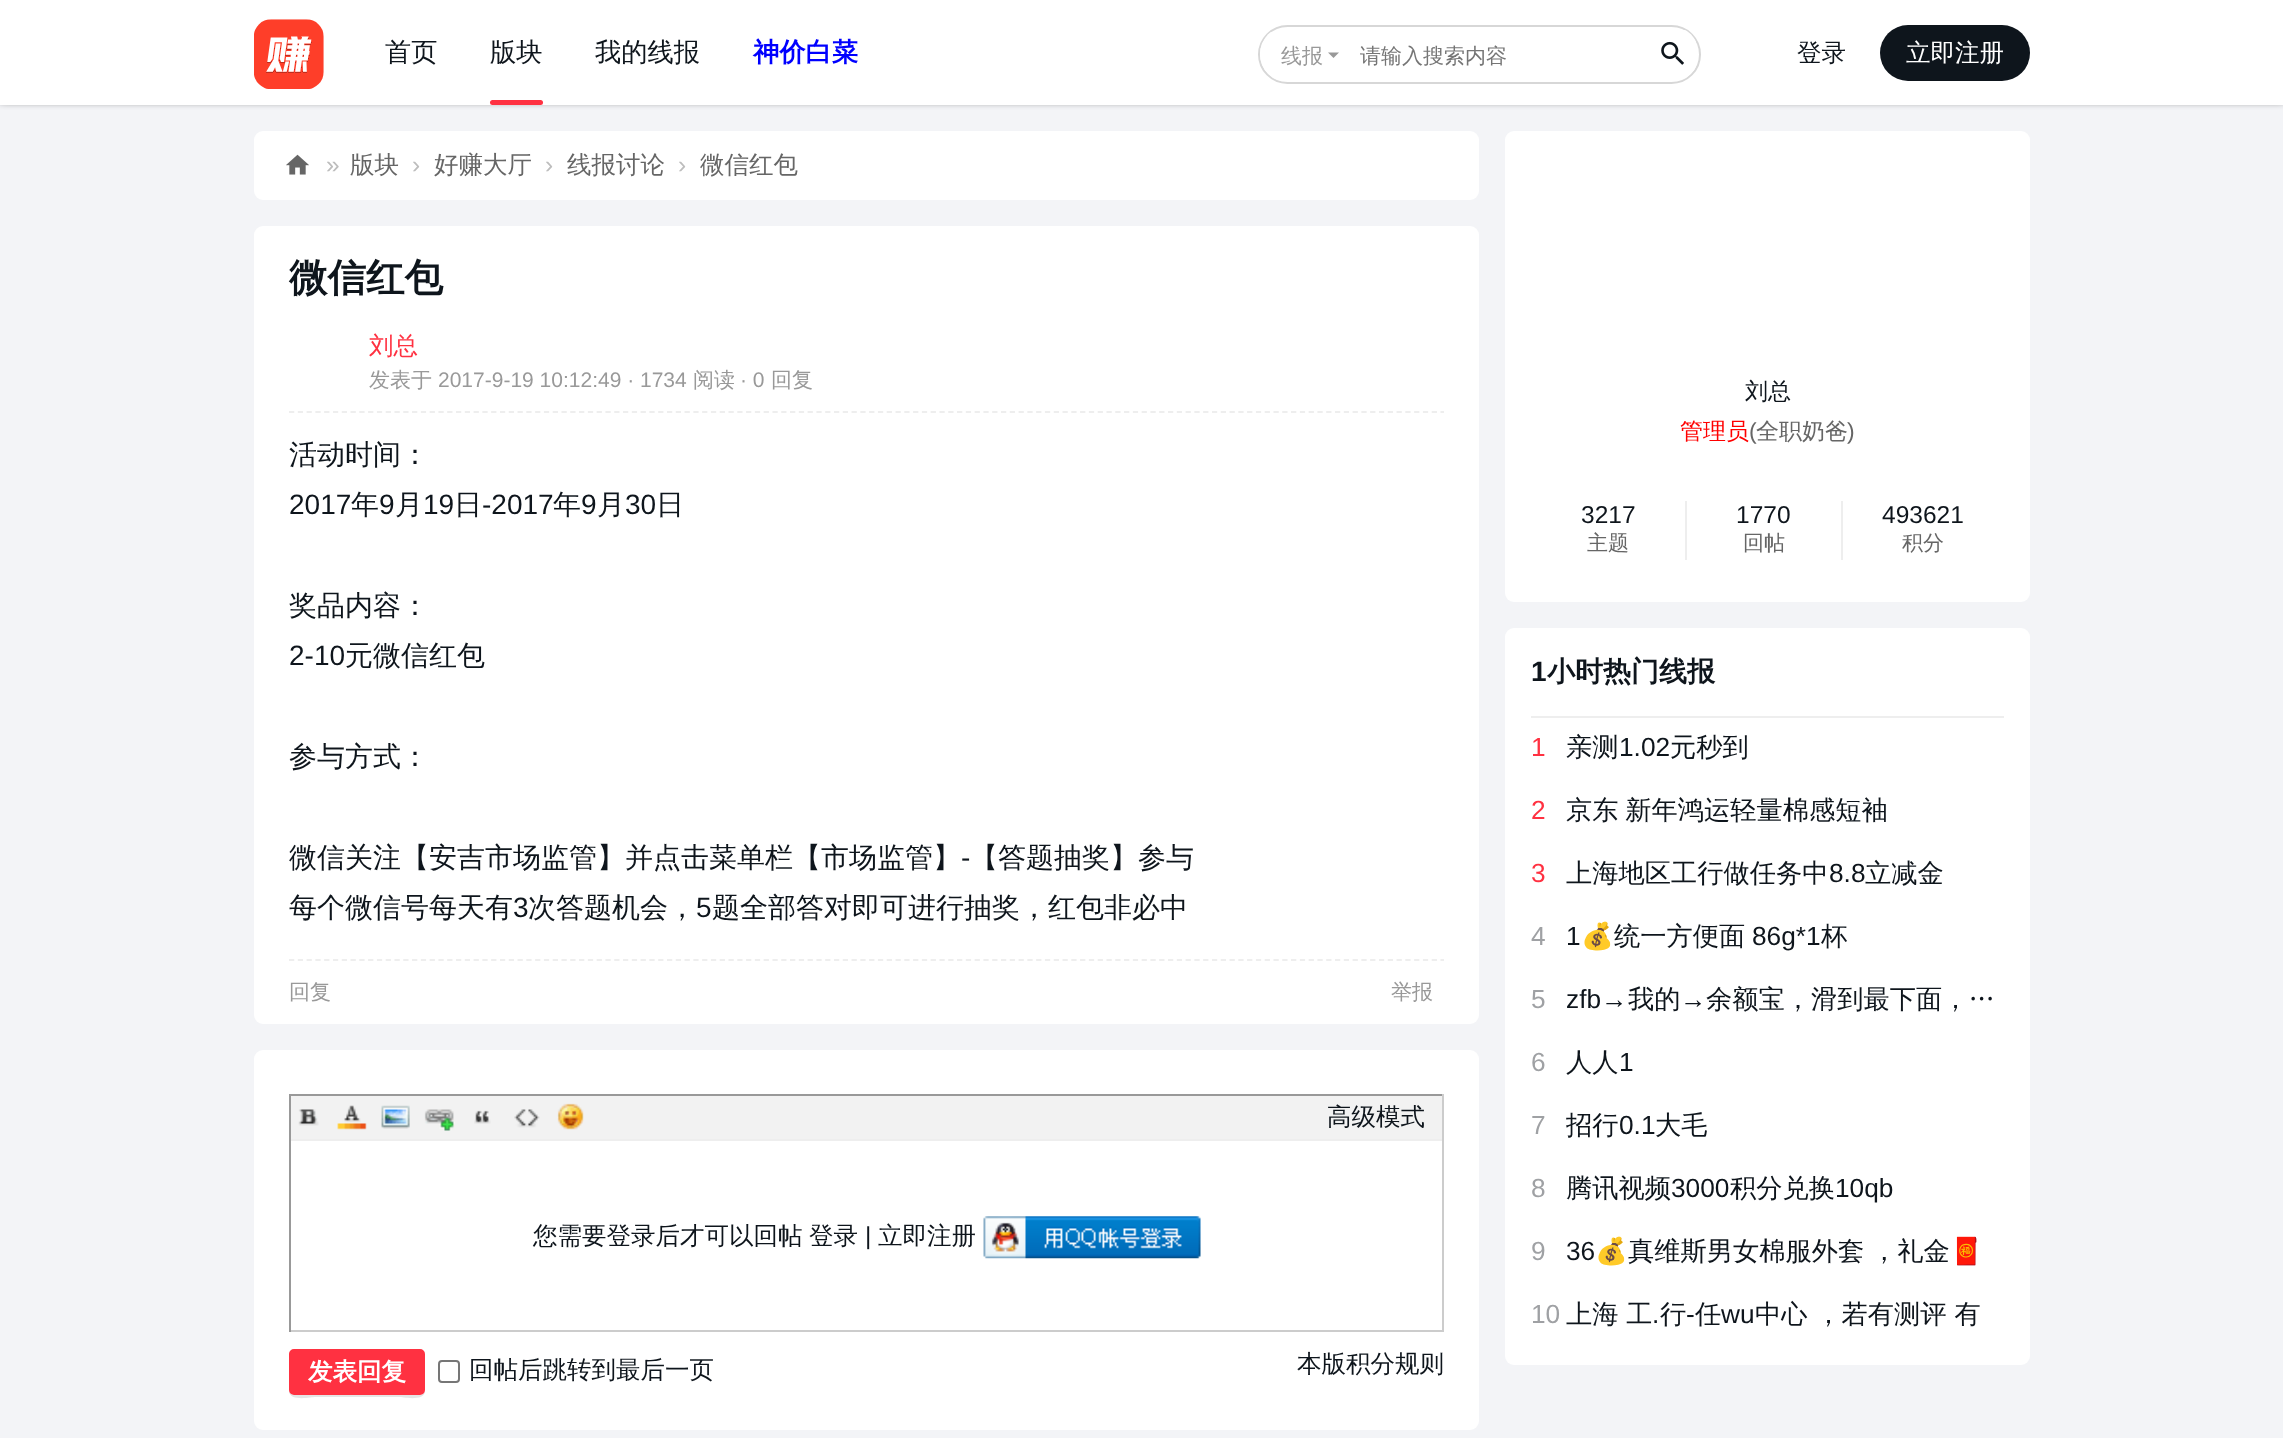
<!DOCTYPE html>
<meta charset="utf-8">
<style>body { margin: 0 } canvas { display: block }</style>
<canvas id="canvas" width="2283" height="1438"></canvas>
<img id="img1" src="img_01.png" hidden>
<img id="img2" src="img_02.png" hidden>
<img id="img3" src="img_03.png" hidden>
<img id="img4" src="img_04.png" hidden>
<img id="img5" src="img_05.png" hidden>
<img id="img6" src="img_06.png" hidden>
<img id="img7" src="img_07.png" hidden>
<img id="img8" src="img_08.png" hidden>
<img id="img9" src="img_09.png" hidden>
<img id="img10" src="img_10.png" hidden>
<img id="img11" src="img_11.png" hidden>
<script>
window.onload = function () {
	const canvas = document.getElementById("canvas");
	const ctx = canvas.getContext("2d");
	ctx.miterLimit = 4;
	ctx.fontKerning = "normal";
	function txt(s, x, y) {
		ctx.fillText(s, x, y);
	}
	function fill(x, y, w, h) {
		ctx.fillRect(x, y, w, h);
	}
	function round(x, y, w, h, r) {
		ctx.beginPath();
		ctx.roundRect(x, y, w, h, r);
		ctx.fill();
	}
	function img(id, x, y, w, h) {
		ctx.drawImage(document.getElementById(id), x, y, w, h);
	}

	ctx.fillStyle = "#F3F4F7";
	fill(0, 0, 2283, 1438);
	ctx.fillStyle = "#000000";
	ctx.filter = "blur(4.5px)";
	ctx.beginPath();
	ctx.rect(0, -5, 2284, 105);
	ctx.fill();
	ctx.filter = "none";
	ctx.fillStyle = "#FFFFFF";
	fill(0, 0, 2283, 105);
	img("img1", 254, 19, 70, 70);
	ctx.fillStyle = "#FF3141";
	round(490, 100, 53, 5, 2.5);
	ctx.beginPath();
	ctx.roundRect(1259, 26, 441, 57, 28.5);
	ctx.strokeStyle = "#D7D7D7";
	ctx.lineWidth = 2;
	ctx.stroke();
	ctx.save();
	ctx.beginPath();
	ctx.roundRect(1260, 26, 439, 56, 28);
	ctx.clip();
	ctx.fillStyle = "#FFFFFF";
	fill(1260, 32, 89, 49);
	ctx.restore();
	ctx.fillStyle = "#999999";
	ctx.beginPath();
	ctx.moveTo(1328, 52.5);
	ctx.lineTo(1339, 52.5);
	ctx.lineTo(1333.5, 58);
	ctx.closePath();
	ctx.fill();
	ctx.save();
	ctx.beginPath();
	ctx.roundRect(1260, 26, 439, 56, 28);
	ctx.clip();
	ctx.fillStyle = "#FFFFFF";
	fill(1647, 30, 49, 49);
	ctx.restore();
	img("img2", 1661, 41, 23, 24);
	ctx.fillStyle = "#0E151C";
	round(1880, 25, 150, 56, 28);
	ctx.fillStyle = "#FFFFFF";
	round(254, 131, 1225, 69, 9);
	img("img3", 286, 154, 23, 21);
	round(254, 226, 1225, 798, 9);
	ctx.beginPath();
	ctx.moveTo(289, 412);
	ctx.lineTo(1444, 412);
	ctx.strokeStyle = "#EEEEEE";
	ctx.lineWidth = 1.8;
	ctx.setLineDash([5.25, 3.54]);
	ctx.stroke();
	ctx.beginPath();
	ctx.moveTo(289, 960);
	ctx.lineTo(1444, 960);
	ctx.stroke();
	round(254, 1050, 1225, 380, 9);
	ctx.fillStyle = "#999999";
	fill(289, 1094, 1155, 2);
	ctx.fillStyle = "#CCCCCC";
	fill(1442, 1094, 2, 238);
	fill(289, 1330, 1155, 2);
	ctx.fillStyle = "#999999";
	fill(289, 1094, 2, 238);
	ctx.fillStyle = "#F2F2F2";
	fill(291, 1096, 1151, 43);
	ctx.fillStyle = "#EEEEEE";
	fill(291, 1139, 1151, 2);
	img("img4", 298, 1109, 21, 17);
	img("img5", 337, 1105, 30, 25);
	img("img6", 381, 1105, 29, 24);
	img("img7", 424, 1109, 31, 22);
	img("img8", 474, 1110, 17, 14);
	img("img9", 514, 1109, 26, 19);
	img("img10", 557, 1103, 27, 27);
	img("img11", 983, 1216, 218, 43);
	ctx.fillStyle = "#E5E5E5";
	ctx.beginPath();
	ctx.moveTo(289, 1391);
	ctx.bezierCurveTo(289, 1402, 312, 1397, 315, 1397);
	ctx.lineTo(399, 1397);
	ctx.bezierCurveTo(402, 1397, 425, 1402, 425, 1391);
	ctx.bezierCurveTo(424, 1393, 422, 1395, 420, 1395);
	ctx.lineTo(294, 1395);
	ctx.bezierCurveTo(292, 1395, 290, 1393, 289, 1391);
	ctx.closePath();
	ctx.fill();
	ctx.fillStyle = "#FF3141";
	ctx.beginPath();
	ctx.roundRect(290, 1350, 134, 44, 4);
	ctx.fill();
	ctx.strokeStyle = "#FF3141";
	ctx.lineWidth = 2;
	ctx.setLineDash([]);
	ctx.stroke();
	ctx.beginPath();
	ctx.roundRect(439, 1361, 20, 21, 3);
	ctx.strokeStyle = "#767676";
	ctx.stroke();
	ctx.fillStyle = "#FFFFFF";
	round(1505, 131, 525, 471, 9);
	ctx.fillStyle = "#EEEEEE";
	fill(1685, 501, 2, 59);
	fill(1841, 501, 2, 59);
	ctx.fillStyle = "#FFFFFF";
	round(1505, 628, 525, 737, 9);
	ctx.fillStyle = "#EEEEEE";
	fill(1531, 716, 473, 2);
	ctx.font = "500 26.25px WenQuanYi Zen Hei";
	ctx.fillStyle = "#0E151C";
	txt("首页", 385, 61);
	txt("版块", 490, 61);
	txt("我的线报", 595, 61);
	ctx.font = "bold 26.25px WenQuanYi Zen Hei";
	ctx.fillStyle = "#0000FF";
	txt("神价白菜", 753, 61);
	ctx.font = "500 21px WenQuanYi Zen Hei";
	ctx.fillStyle = "#999999";
	txt("线报", 1281, 63);
	ctx.fillStyle = "#757575";
	txt("请输入搜索内容", 1360, 63);
	ctx.font = "500 24.5px WenQuanYi Zen Hei";
	ctx.fillStyle = "#0E151C";
	txt("登录", 1797, 61);
	ctx.fillStyle = "#FFFFFF";
	txt("立即注册", 1906, 61);
	ctx.font = "24.5px Liberation Sans";
	ctx.fillStyle = "#BDBDBD";
	txt("»", 326, 173);
	ctx.font = "500 24.5px WenQuanYi Zen Hei";
	ctx.fillStyle = "#666666";
	txt("版块", 350, 173);
	ctx.font = "24.5px Liberation Sans";
	ctx.fillStyle = "#BDBDBD";
	txt("›", 412, 173);
	ctx.font = "500 24.5px WenQuanYi Zen Hei";
	ctx.fillStyle = "#666666";
	txt("好赚大厅", 434, 173);
	ctx.font = "24.5px Liberation Sans";
	ctx.fillStyle = "#BDBDBD";
	txt("›", 545, 173);
	ctx.font = "500 24.5px WenQuanYi Zen Hei";
	ctx.fillStyle = "#666666";
	txt("线报讨论", 567, 173);
	ctx.font = "24.5px Liberation Sans";
	ctx.fillStyle = "#BDBDBD";
	txt("›", 678, 173);
	ctx.font = "500 24.5px WenQuanYi Zen Hei";
	ctx.fillStyle = "#666666";
	txt("微信红包", 700, 173);
	ctx.font = "bold 38.5px WenQuanYi Zen Hei";
	ctx.fillStyle = "#0E151C";
	txt("微信红包", 289, 291);
	ctx.font = "500 24.5px WenQuanYi Zen Hei";
	ctx.fillStyle = "#FF3141";
	txt("刘总", 369, 354);
	ctx.font = "500 21px WenQuanYi Zen Hei";
	ctx.fillStyle = "#999999";
	txt("发表于", 369, 387);
	ctx.font = "21px Liberation Sans";
	txt("2017-9-19 10:12:49 · 1734", 438, 387);
	ctx.font = "500 21px WenQuanYi Zen Hei";
	txt("阅读", 693, 387);
	ctx.font = "21px Liberation Sans";
	txt("· 0", 740, 387);
	ctx.font = "500 21px WenQuanYi Zen Hei";
	txt("回复", 771, 387);
	ctx.font = "500 28px WenQuanYi Zen Hei";
	ctx.fillStyle = "#0E151C";
	txt("活动时间：", 289, 464);
	ctx.font = "28px Liberation Sans";
	txt("2017", 289, 514);
	ctx.font = "500 28px WenQuanYi Zen Hei";
	txt("年", 351, 514);
	ctx.font = "28px Liberation Sans";
	txt("9", 379, 514);
	ctx.font = "500 28px WenQuanYi Zen Hei";
	txt("月", 395, 514);
	ctx.font = "28px Liberation Sans";
	txt("19", 423, 514);
	ctx.font = "500 28px WenQuanYi Zen Hei";
	txt("日", 454, 514);
	ctx.font = "28px Liberation Sans";
	txt("-2017", 482, 514);
	ctx.font = "500 28px WenQuanYi Zen Hei";
	txt("年", 553, 514);
	ctx.font = "28px Liberation Sans";
	txt("9", 581, 514);
	ctx.font = "500 28px WenQuanYi Zen Hei";
	txt("月", 597, 514);
	ctx.font = "28px Liberation Sans";
	txt("30", 625, 514);
	ctx.font = "500 28px WenQuanYi Zen Hei";
	txt("日", 656, 514);
	txt("奖品内容：", 289, 615);
	ctx.font = "28px Liberation Sans";
	txt("2-10", 289, 665);
	ctx.font = "500 28px WenQuanYi Zen Hei";
	txt("元微信红包", 345, 665);
	txt("参与方式：", 289, 766);
	txt("微信关注【安吉市场监管】并点击菜单栏【市场监管】", 289, 867);
	ctx.font = "28px Liberation Sans";
	txt("-", 961, 867);
	ctx.font = "500 28px WenQuanYi Zen Hei";
	txt("【答题抽奖】参与", 970, 867);
	txt("每个微信号每天有", 289, 917);
	ctx.font = "28px Liberation Sans";
	txt("3", 513, 917);
	ctx.font = "500 28px WenQuanYi Zen Hei";
	txt("次答题机会，", 528, 917);
	ctx.font = "28px Liberation Sans";
	txt("5", 696, 917);
	ctx.font = "500 28px WenQuanYi Zen Hei";
	txt("题全部答对即可进行抽奖，红包非必中", 712, 917);
	ctx.font = "500 21px WenQuanYi Zen Hei";
	ctx.fillStyle = "#999999";
	txt("回复", 289, 999);
	txt("举报", 1391, 999);
	ctx.font = "500 24.5px WenQuanYi Zen Hei";
	ctx.fillStyle = "#0E151C";
	txt("高级模式", 1327, 1125);
	txt("您需要登录后才可以回帖", 533, 1244);
	txt("登录", 809, 1244);
	ctx.font = "24.5px Liberation Sans";
	txt("|", 865, 1244);
	ctx.font = "500 24.5px WenQuanYi Zen Hei";
	txt("立即注册", 878, 1244);
	ctx.font = "bold 24.5px WenQuanYi Zen Hei";
	ctx.fillStyle = "#FFFFFF";
	txt("发表回复", 308, 1380);
	ctx.font = "500 24.5px WenQuanYi Zen Hei";
	ctx.fillStyle = "#0E151C";
	txt("回帖后跳转到最后一页", 469, 1378);
	txt("本版积分规则", 1297, 1372);
	ctx.font = "500 23px WenQuanYi Zen Hei";
	txt("刘总", 1745, 399);
	ctx.fillStyle = "#FF0000";
	txt("管理员", 1680, 439);
	ctx.font = "23px Liberation Sans";
	ctx.fillStyle = "#666666";
	txt("(", 1749, 439);
	ctx.font = "500 23px WenQuanYi Zen Hei";
	txt("全职奶爸", 1756, 439);
	ctx.font = "23px Liberation Sans";
	txt(")", 1847, 439);
	ctx.font = "24.5px Liberation Sans";
	ctx.fillStyle = "#0E151C";
	txt("3217", 1581, 523);
	ctx.font = "500 21px WenQuanYi Zen Hei";
	ctx.fillStyle = "#666666";
	txt("主题", 1587, 550);
	ctx.font = "24.5px Liberation Sans";
	ctx.fillStyle = "#0E151C";
	txt("1770", 1736, 523);
	ctx.font = "500 21px WenQuanYi Zen Hei";
	ctx.fillStyle = "#666666";
	txt("回帖", 1743, 550);
	ctx.font = "24.5px Liberation Sans";
	ctx.fillStyle = "#0E151C";
	txt("493621", 1882, 523);
	ctx.font = "500 21px WenQuanYi Zen Hei";
	ctx.fillStyle = "#666666";
	txt("积分", 1902, 550);
	ctx.font = "bold 28px Liberation Sans";
	ctx.fillStyle = "#0E151C";
	txt("1", 1531, 681);
	ctx.font = "bold 28px WenQuanYi Zen Hei";
	txt("小时热门线报", 1547, 681);
	ctx.font = "26.25px Liberation Sans";
	ctx.fillStyle = "#FF3141";
	txt("1", 1531, 756);
	ctx.font = "500 26.25px WenQuanYi Zen Hei";
	ctx.fillStyle = "#0E151C";
	txt("亲测", 1566, 756);
	ctx.font = "26.25px Liberation Sans";
	txt("1.02", 1619, 756);
	ctx.font = "500 26.25px WenQuanYi Zen Hei";
	txt("元秒到", 1670, 756);
	ctx.font = "26.25px Liberation Sans";
	ctx.fillStyle = "#FF3141";
	txt("2", 1531, 819);
	ctx.wordSpacing = "-1px";
	ctx.font = "500 26.25px WenQuanYi Zen Hei";
	ctx.fillStyle = "#0E151C";
	txt("京东 新年鸿运轻量棉感短袖", 1566, 819);
	ctx.wordSpacing = "0px";
	ctx.font = "26.25px Liberation Sans";
	ctx.fillStyle = "#FF3141";
	txt("3", 1531, 882);
	ctx.font = "500 26.25px WenQuanYi Zen Hei";
	ctx.fillStyle = "#0E151C";
	txt("上海地区工行做任务中", 1566, 882);
	ctx.font = "26.25px Liberation Sans";
	txt("8.8", 1829, 882);
	ctx.font = "500 26.25px WenQuanYi Zen Hei";
	txt("立减金", 1865, 882);
	ctx.font = "26.25px Liberation Sans";
	ctx.fillStyle = "#9FA1A4";
	txt("4", 1531, 945);
	ctx.fillStyle = "#0E151C";
	txt("1", 1566, 945);
	ctx.font = "26.25px Noto Color Emoji";
	txt("💰", 1581, 945);
	ctx.font = "500 26.25px WenQuanYi Zen Hei";
	txt("统一方便面", 1614, 945);
	ctx.font = "26.25px Liberation Sans";
	txt("86g*1", 1752, 945);
	ctx.font = "500 26.25px WenQuanYi Zen Hei";
	txt("杯", 1821, 945);
	ctx.font = "26.25px Liberation Sans";
	ctx.fillStyle = "#9FA1A4";
	txt("5", 1531, 1008);
	ctx.fillStyle = "#0E151C";
	txt("zfb→", 1566, 1008);
	ctx.font = "500 26.25px WenQuanYi Zen Hei";
	txt("我的", 1628, 1008);
	ctx.font = "26.25px Liberation Sans";
	txt("→", 1680, 1008);
	ctx.font = "500 26.25px WenQuanYi Zen Hei";
	txt("余额宝，滑到最下面，…", 1706, 1008);
	ctx.font = "26.25px Liberation Sans";
	ctx.fillStyle = "#9FA1A4";
	txt("6", 1531, 1071);
	ctx.font = "500 26.25px WenQuanYi Zen Hei";
	ctx.fillStyle = "#0E151C";
	txt("人人", 1566, 1071);
	ctx.font = "26.25px Liberation Sans";
	txt("1", 1619, 1071);
	ctx.fillStyle = "#9FA1A4";
	txt("7", 1531, 1134);
	ctx.font = "500 26.25px WenQuanYi Zen Hei";
	ctx.fillStyle = "#0E151C";
	txt("招行", 1566, 1134);
	ctx.font = "26.25px Liberation Sans";
	txt("0.1", 1619, 1134);
	ctx.font = "500 26.25px WenQuanYi Zen Hei";
	txt("大毛", 1655, 1134);
	ctx.font = "26.25px Liberation Sans";
	ctx.fillStyle = "#9FA1A4";
	txt("8", 1531, 1197);
	ctx.font = "500 26.25px WenQuanYi Zen Hei";
	ctx.fillStyle = "#0E151C";
	txt("腾讯视频", 1566, 1197);
	ctx.font = "26.25px Liberation Sans";
	txt("3000", 1671, 1197);
	ctx.font = "500 26.25px WenQuanYi Zen Hei";
	txt("积分兑换", 1730, 1197);
	ctx.font = "26.25px Liberation Sans";
	txt("10qb", 1835, 1197);
	ctx.fillStyle = "#9FA1A4";
	txt("9", 1531, 1260);
	ctx.fillStyle = "#0E151C";
	txt("36", 1566, 1260);
	ctx.font = "26.25px Noto Color Emoji";
	txt("💰", 1595, 1260);
	ctx.wordSpacing = "-1px";
	ctx.font = "500 26.25px WenQuanYi Zen Hei";
	txt("真维斯男女棉服外套 ，礼金", 1628, 1260);
	ctx.wordSpacing = "0px";
	ctx.font = "26.25px Noto Color Emoji";
	txt("🧧", 1950, 1260);
	ctx.font = "26.25px Liberation Sans";
	ctx.fillStyle = "#9FA1A4";
	txt("10", 1531, 1323);
	ctx.font = "500 26.25px WenQuanYi Zen Hei";
	ctx.fillStyle = "#0E151C";
	txt("上海 工", 1566, 1323);
	txt("行", 1660, 1323);
	ctx.font = "26.25px Liberation Sans";
	txt("-", 1686, 1323);
	ctx.font = "500 26.25px WenQuanYi Zen Hei";
	txt("任", 1695, 1323);
	ctx.font = "26.25px Liberation Sans";
	txt("wu", 1721, 1323);
	ctx.font = "500 26.25px WenQuanYi Zen Hei";
	txt("中心 ，若有测评 有", 1755, 1323);
	ctx.font = "26.25px Liberation Sans";
	txt(".", 1652, 1323);
};
</script>
